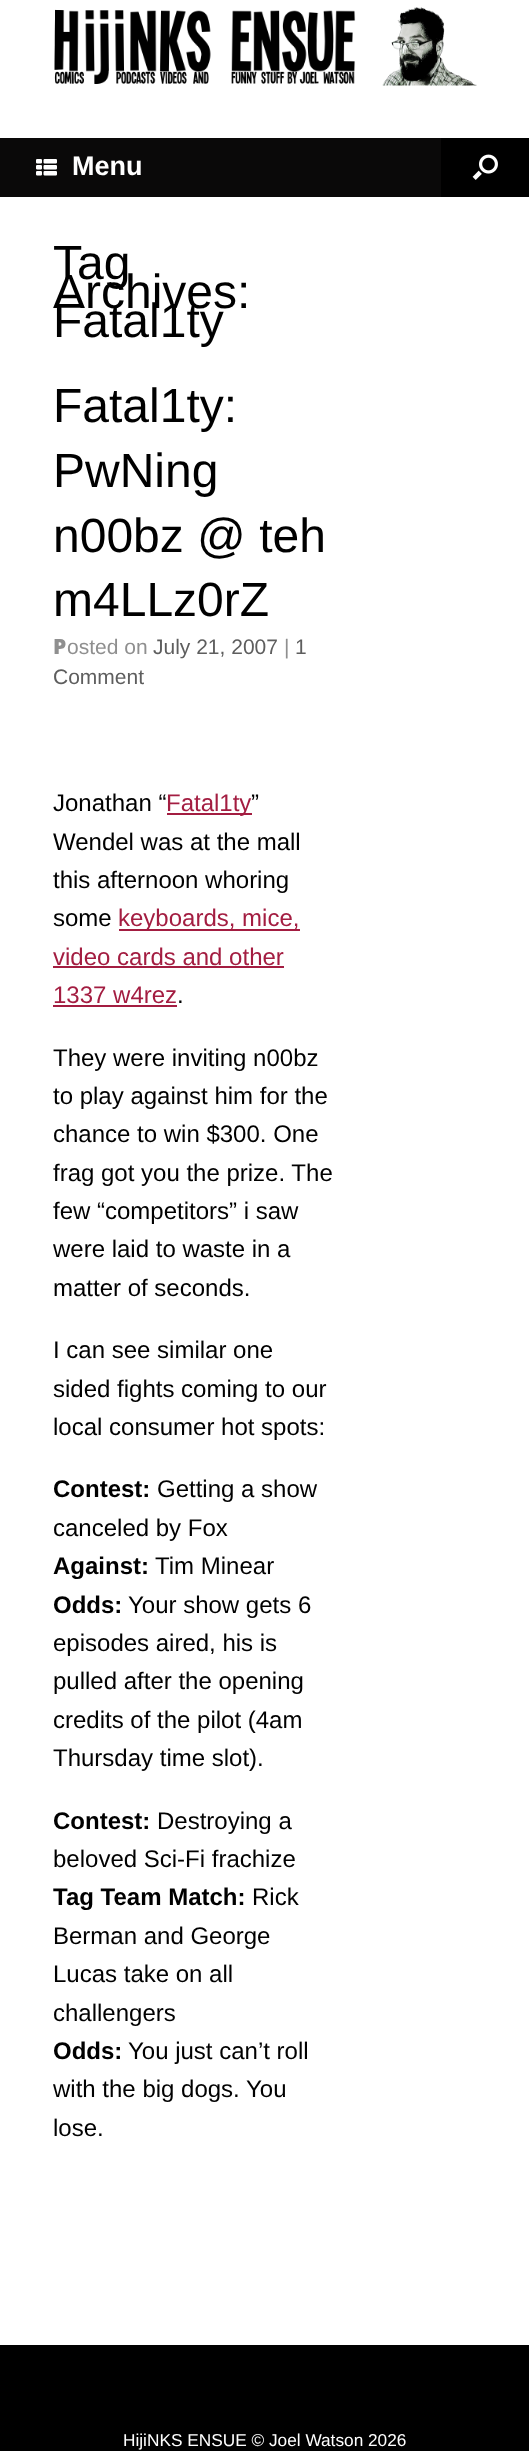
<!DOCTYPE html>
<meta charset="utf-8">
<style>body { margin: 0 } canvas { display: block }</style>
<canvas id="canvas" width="529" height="2451"></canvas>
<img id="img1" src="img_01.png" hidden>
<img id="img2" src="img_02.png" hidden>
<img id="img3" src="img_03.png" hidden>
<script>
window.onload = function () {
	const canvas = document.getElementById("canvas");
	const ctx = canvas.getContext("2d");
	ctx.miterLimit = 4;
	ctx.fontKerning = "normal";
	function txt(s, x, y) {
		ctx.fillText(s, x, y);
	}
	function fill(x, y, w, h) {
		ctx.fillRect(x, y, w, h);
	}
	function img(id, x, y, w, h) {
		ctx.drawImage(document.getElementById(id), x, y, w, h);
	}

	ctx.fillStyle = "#000000";
	fill(0, 0, 529, 2451);
	ctx.fillStyle = "#FFFFFF";
	fill(0, 0, 529, 138);
	img("img1", 54, 7, 423, 79);
	ctx.fillStyle = "#0A0909";
	fill(0, 138, 441, 59);
	img("img2", 36, 159, 21, 17);
	img("img3", 472, 154, 26, 26);
	ctx.fillStyle = "#FFFFFF";
	fill(0, 197, 529, 2148);
	ctx.fillStyle = "#A31D41";
	fill(167, 813, 85, 2);
	fill(119, 929, 181, 2);
	fill(53, 966, 231, 2);
	fill(53, 1005, 124, 2);
	ctx.font = "bold 27px Liberation Sans";
	ctx.fillStyle = "#FFFFFF";
	txt("Menu", 72, 175);
	ctx.font = "48px Liberation Sans";
	ctx.fillStyle = "#000000";
	txt("Tag", 53, 279);
	txt("Archives:", 53, 308);
	txt("Fatal1ty", 53, 337);
	txt("Fatal1ty:", 53, 422);
	txt("PwNing", 53, 487);
	txt("n00bz @ teh", 53, 552);
	txt("m4LLz0rZ", 53, 616);
	ctx.font = "900 21px Noto Sans";
	ctx.fillStyle = "#8F8F8F";
	txt("P", 53, 654);
	ctx.font = "21px Liberation Sans";
	txt("osted on", 67, 654);
	ctx.fillStyle = "#5E5E5E";
	txt("July 21, 2007", 153, 654);
	ctx.fillStyle = "#8F8F8F";
	txt("|", 284, 654);
	ctx.fillStyle = "#5E5E5E";
	txt("1", 295, 654);
	txt("Comment", 53, 684);
	ctx.font = "24px Liberation Sans";
	ctx.fillStyle = "#000000";
	txt("Jonathan “", 53, 811);
	ctx.fillStyle = "#A31D41";
	txt("Fatal1ty", 166, 811);
	ctx.fillStyle = "#000000";
	txt("”", 251, 811);
	txt("Wendel was at the mall", 53, 850);
	txt("this afternoon whoring", 53, 888);
	txt("some", 53, 926);
	ctx.fillStyle = "#A31D41";
	txt("keyboards, mice,", 118, 926);
	txt("video cards and other", 53, 965);
	txt("1337 w4rez", 53, 1003);
	ctx.fillStyle = "#000000";
	txt(".", 177, 1003);
	txt("They were inviting n00bz", 53, 1066);
	txt("to play against him for the", 53, 1104);
	txt("chance to win $300. One", 53, 1142);
	txt("frag got you the prize. The", 53, 1181);
	txt("few “competitors” i saw", 53, 1219);
	txt("were laid to waste in a", 53, 1257);
	txt("matter of seconds.", 53, 1296);
	txt("I can see similar one", 53, 1358);
	txt("sided fights coming to our", 53, 1397);
	txt("local consumer hot spots:", 53, 1435);
	ctx.font = "bold 24px Liberation Sans";
	txt("Contest:", 53, 1497);
	ctx.font = "24px Liberation Sans";
	txt("Getting a show", 157, 1497);
	txt("canceled by Fox", 53, 1536);
	ctx.font = "bold 24px Liberation Sans";
	txt("Against:", 53, 1574);
	ctx.font = "24px Liberation Sans";
	txt("Tim Minear", 155, 1574);
	ctx.font = "bold 24px Liberation Sans";
	txt("Odds:", 53, 1613);
	ctx.font = "24px Liberation Sans";
	txt("Your show gets 6", 128, 1613);
	txt("episodes aired, his is", 53, 1651);
	txt("pulled after the opening", 53, 1689);
	txt("credits of the pilot (4am", 53, 1728);
	txt("Thursday time slot).", 53, 1766);
	ctx.font = "bold 24px Liberation Sans";
	txt("Contest:", 53, 1829);
	ctx.font = "24px Liberation Sans";
	txt("Destroying a", 157, 1829);
	txt("beloved Sci-Fi frachize", 53, 1867);
	ctx.font = "bold 24px Liberation Sans";
	txt("Tag Team Match:", 53, 1905);
	ctx.font = "24px Liberation Sans";
	txt("Rick", 252, 1905);
	txt("Berman and George", 53, 1944);
	txt("Lucas take on all", 53, 1982);
	txt("challengers", 53, 2021);
	ctx.font = "bold 24px Liberation Sans";
	txt("Odds:", 53, 2059);
	ctx.font = "24px Liberation Sans";
	txt("You just can’t roll", 128, 2059);
	txt("with the big dogs. You", 53, 2097);
	txt("lose.", 53, 2136);
	ctx.font = "17.25px Liberation Sans";
	ctx.fillStyle = "#FFFFFF";
	txt("HijiNKS ENSUE © Joel Watson 2026", 123, 2446);
};
</script>
